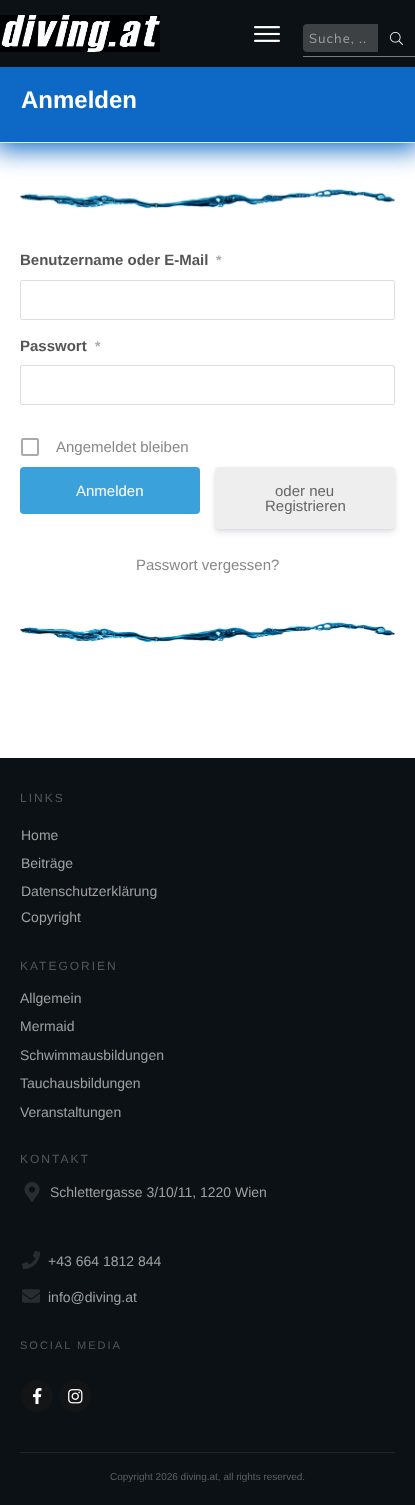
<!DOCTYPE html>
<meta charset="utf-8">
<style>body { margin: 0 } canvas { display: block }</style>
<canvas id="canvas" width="415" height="1505"></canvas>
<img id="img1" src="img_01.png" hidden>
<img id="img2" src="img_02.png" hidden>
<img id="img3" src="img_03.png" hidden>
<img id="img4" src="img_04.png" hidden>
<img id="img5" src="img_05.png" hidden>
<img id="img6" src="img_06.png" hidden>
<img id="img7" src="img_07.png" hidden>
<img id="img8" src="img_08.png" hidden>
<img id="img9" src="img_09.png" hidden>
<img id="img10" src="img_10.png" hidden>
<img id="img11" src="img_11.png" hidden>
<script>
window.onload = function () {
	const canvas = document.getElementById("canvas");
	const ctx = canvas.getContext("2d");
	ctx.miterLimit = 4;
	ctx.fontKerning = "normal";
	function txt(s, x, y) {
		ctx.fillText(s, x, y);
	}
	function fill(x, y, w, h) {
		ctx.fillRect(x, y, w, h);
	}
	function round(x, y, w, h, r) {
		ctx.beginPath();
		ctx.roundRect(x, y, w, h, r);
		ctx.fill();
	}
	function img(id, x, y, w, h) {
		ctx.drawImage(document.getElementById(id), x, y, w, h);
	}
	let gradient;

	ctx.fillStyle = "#FFFFFF";
	fill(0, 0, 415, 1505);
	ctx.fillStyle = "#0D69C5";
	ctx.filter = "blur(13.5px)";
	ctx.beginPath();
	ctx.rect(-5, 53, 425, 96);
	ctx.fill();
	ctx.filter = "none";
	ctx.fillStyle = "#0C1115";
	fill(0, 0, 415, 67);
	img("img1", 0, 15, 160, 37);
	img("img2", 254, 26, 26, 16);
	ctx.fillStyle = "#797C7E";
	fill(303, 56, 112, 1);
	ctx.fillStyle = "#3E4143";
	ctx.beginPath();
	ctx.roundRect(303, 24, 75, 28, [4, 0, 0, 4]);
	ctx.fill();
	img("img3", 390, 32, 13, 13);
	ctx.fillStyle = "#0D69C5";
	fill(0, 67, 415, 75);
	ctx.fillStyle = "#E6E6E6";
	fill(0, 142, 415, 1);
	img("img4", 20, 188, 375, 21);
	ctx.beginPath();
	ctx.roundRect(20.5, 280.5, 374, 39, 1.5);
	ctx.strokeStyle = "#DDDDDD";
	ctx.stroke();
	ctx.beginPath();
	ctx.roundRect(20.5, 365.5, 374, 39, 1.5);
	ctx.stroke();
	img("img5", 21, 438, 18, 18);
	ctx.fillStyle = "#3BA1DA";
	round(20, 467, 180, 47, 4);
	ctx.fillStyle = "rgba(0, 0, 0, 0.08)";
	ctx.filter = "blur(1.5px)";
	ctx.beginPath();
	ctx.roundRect(215, 468, 180, 62, 4);
	ctx.fill();
	ctx.filter = "none";
	ctx.fillStyle = "rgba(50, 50, 93, 0.11)";
	ctx.filter = "blur(3px)";
	ctx.beginPath();
	ctx.roundRect(215, 471, 180, 62, 4);
	ctx.fill();
	ctx.filter = "none";
	ctx.fillStyle = "#EEEEEE";
	round(215, 467, 180, 62, 4);
	img("img6", 20, 621, 375, 22);
	ctx.fillStyle = "#0C1115";
	fill(0, 758, 415, 747);
	ctx.fillStyle = "#1F2428";
	fill(20, 1452, 375, 1);
	img("img7", 24, 1182, 16, 20);
	img("img8", 22, 1251, 18, 18);
	img("img9", 22, 1289, 18, 14);
	gradient = ctx.createLinearGradient(21, 1380, 53, 1412);
	gradient.addColorStop(0.5, "#121416");
	gradient.addColorStop(0.5, "#141516");
	ctx.fillStyle = gradient;
	ctx.beginPath();
	ctx.arc(37, 1396, 16, 0, Math.PI * 2);
	ctx.fill();
	img("img10", 33, 1388, 9, 16);
	gradient = ctx.createLinearGradient(59, 1380, 91, 1412);
	gradient.addColorStop(0.5, "#121416");
	gradient.addColorStop(0.5, "#141516");
	ctx.fillStyle = gradient;
	ctx.beginPath();
	ctx.arc(75, 1396, 16, 0, Math.PI * 2);
	ctx.fill();
	img("img11", 68, 1389, 15, 15);
	ctx.letterSpacing = "1px";
	ctx.font = "13px Muli";
	ctx.fillStyle = "#9EA0A1";
	txt("Suche, ..", 309, 43);
	ctx.letterSpacing = "0px";
	ctx.font = "bold 24px Liberation Sans";
	ctx.fillStyle = "#FFFFFF";
	txt("Anmelden", 21, 108);
	ctx.font = "bold 15px Liberation Sans";
	ctx.fillStyle = "#555555";
	txt("Benutzername oder E-Mail", 20, 265);
	ctx.font = "bold 14px Liberation Sans";
	ctx.fillStyle = "#AAAAAA";
	txt("*", 216, 265);
	ctx.font = "bold 15px Liberation Sans";
	ctx.fillStyle = "#555555";
	txt("Passwort", 20, 351);
	ctx.font = "bold 14px Liberation Sans";
	ctx.fillStyle = "#AAAAAA";
	txt("*", 95, 351);
	ctx.font = "15px Liberation Sans";
	ctx.fillStyle = "#888888";
	txt("Angemeldet bleiben", 56, 452);
	ctx.fillStyle = "#FFFFFF";
	txt("Anmelden", 76, 496);
	ctx.fillStyle = "#666666";
	txt("oder neu", 275, 496);
	txt("Registrieren", 265, 511);
	ctx.fillStyle = "#888888";
	txt("Passwort vergessen?", 136, 570);
	ctx.letterSpacing = "2px";
	ctx.font = "12px Liberation Sans";
	ctx.fillStyle = "#55585B";
	txt("LINKS", 20, 802);
	ctx.letterSpacing = "0px";
	ctx.font = "14px Liberation Sans";
	ctx.fillStyle = "#9EA0A1";
	txt("Home", 21, 840);
	txt("Beiträge", 21, 868);
	txt("Datenschutzerklärung", 21, 896);
	txt("Copyright", 21, 922);
	ctx.letterSpacing = "2px";
	ctx.font = "12px Liberation Sans";
	ctx.fillStyle = "#55585B";
	txt("KATEGORIEN", 20, 970);
	ctx.letterSpacing = "0px";
	ctx.font = "14px Liberation Sans";
	ctx.fillStyle = "#9EA0A1";
	txt("Allgemein", 20, 1003);
	txt("Mermaid", 20, 1031);
	txt("Schwimmausbildungen", 20, 1060);
	txt("Tauchausbildungen", 20, 1088);
	txt("Veranstaltungen", 20, 1117);
	ctx.letterSpacing = "2px";
	ctx.font = "12px Liberation Sans";
	ctx.fillStyle = "#55585B";
	txt("KONTAKT", 20, 1163);
	ctx.letterSpacing = "0px";
	ctx.font = "14px Liberation Sans";
	ctx.fillStyle = "#9EA0A1";
	txt("Schlettergasse 3/10/11, 1220 Wien", 50, 1197);
	txt("+43 664 1812 844", 48, 1266);
	txt("info@diving.at", 48, 1302);
	ctx.letterSpacing = "2px";
	ctx.font = "11px Liberation Sans";
	ctx.fillStyle = "#55585B";
	txt("SOCIAL MEDIA", 20, 1349);
	ctx.letterSpacing = "0px";
	ctx.font = "10px Liberation Sans";
	ctx.fillStyle = "#5C6062";
	txt("Copyright 2026 diving.at, all rights reserved.", 110, 1480);
};
</script>
